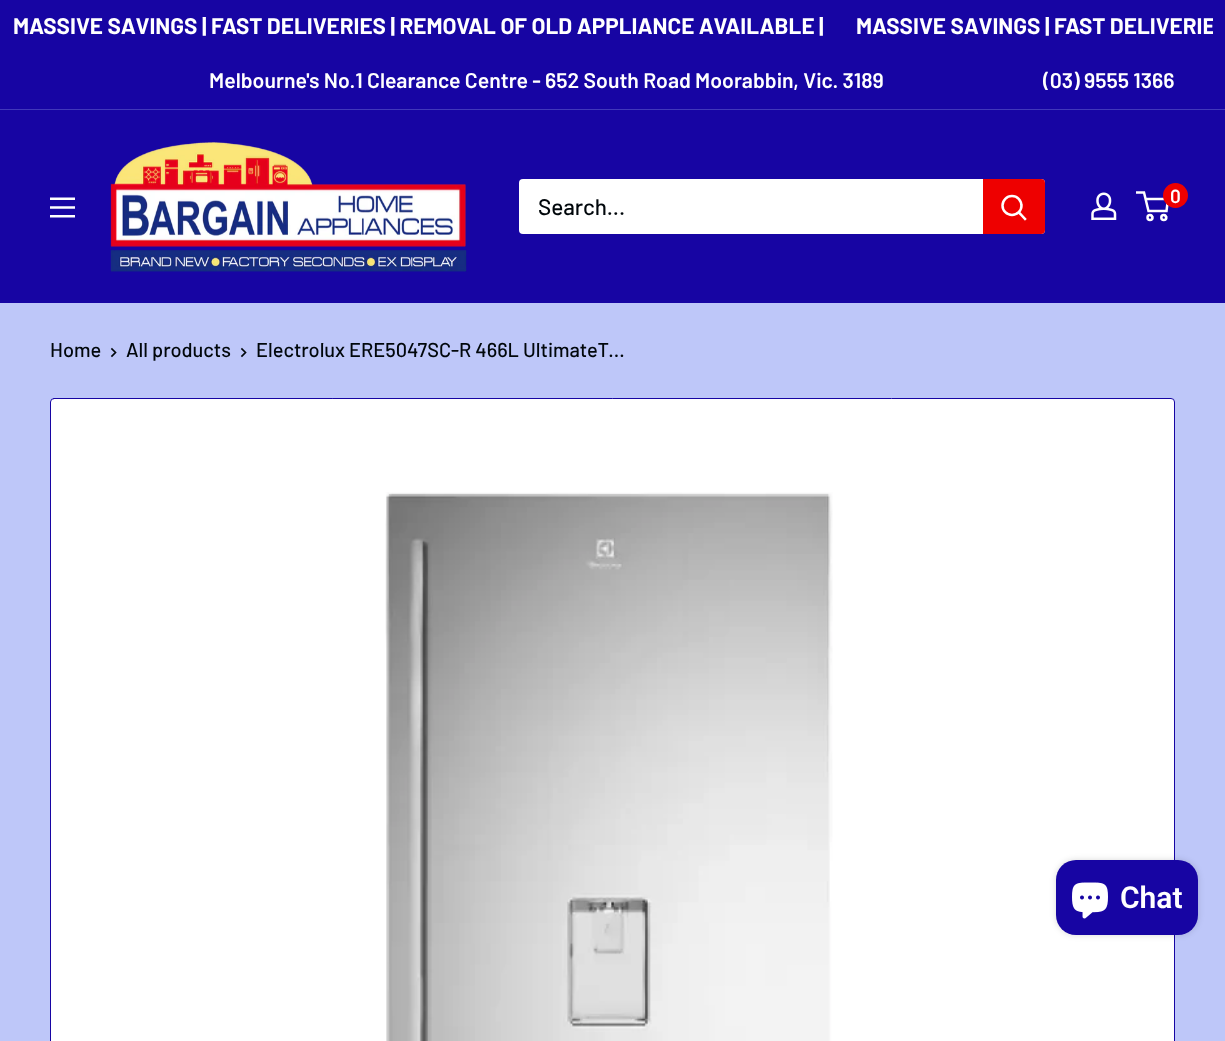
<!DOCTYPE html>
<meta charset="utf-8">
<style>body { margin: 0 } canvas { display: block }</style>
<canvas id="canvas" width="1225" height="1041"></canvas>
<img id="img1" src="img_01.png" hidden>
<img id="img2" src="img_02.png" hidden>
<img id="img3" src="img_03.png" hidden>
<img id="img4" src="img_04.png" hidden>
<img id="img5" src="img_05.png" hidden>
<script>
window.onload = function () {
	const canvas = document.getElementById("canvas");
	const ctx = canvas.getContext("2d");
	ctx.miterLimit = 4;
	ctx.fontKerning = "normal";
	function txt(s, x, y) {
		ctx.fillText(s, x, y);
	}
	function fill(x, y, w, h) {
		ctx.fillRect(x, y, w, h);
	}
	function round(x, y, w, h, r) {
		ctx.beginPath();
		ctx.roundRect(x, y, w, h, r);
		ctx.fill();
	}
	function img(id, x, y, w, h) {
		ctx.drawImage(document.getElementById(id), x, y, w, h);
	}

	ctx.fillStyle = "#BEC7F9";
	fill(0, 0, 1225, 1041);
	ctx.fillStyle = "#1705A3";
	fill(0, 0, 1225, 109);
	ctx.fillStyle = "#4138BA";
	fill(0, 109, 1225, 1);
	ctx.fillStyle = "#1705A3";
	fill(0, 110, 1225, 193);
	img("img1", 50, 197, 25, 21);
	img("img2", 110, 142, 357, 130);
	ctx.fillStyle = "#FFFFFF";
	round(519, 179, 526, 55, 4);
	ctx.fillStyle = "#EE0000";
	ctx.beginPath();
	ctx.roundRect(983, 179, 62, 55, [0, 4, 4, 0]);
	ctx.fill();
	ctx.beginPath();
	ctx.moveTo(1025, 219);
	ctx.lineTo(1019, 212.5);
	ctx.strokeStyle = "#FFFFFF";
	ctx.lineWidth = 2.5;
	ctx.lineCap = "square";
	ctx.stroke();
	ctx.beginPath();
	ctx.arc(1012, 205.5, 9.5, 0, Math.PI * 2);
	ctx.stroke();
	img("img3", 1091, 192, 26, 28);
	ctx.beginPath();
	ctx.arc(1150, 217.5, 2.5, 0, Math.PI * 2);
	ctx.stroke();
	ctx.beginPath();
	ctx.arc(1163.8, 217.5, 2.5, 0, Math.PI * 2);
	ctx.stroke();
	ctx.beginPath();
	ctx.moveTo(1145.5, 199);
	ctx.lineTo(1168, 199);
	ctx.lineTo(1166.5, 211);
	ctx.lineTo(1148.5, 211);
	ctx.lineTo(1144, 192.5);
	ctx.lineTo(1136, 192.5);
	ctx.lineCap = "butt";
	ctx.stroke();
	ctx.beginPath();
	ctx.arc(1175.5, 195.5, 12.5, 0, Math.PI * 2);
	ctx.fill();
	ctx.beginPath();
	ctx.moveTo(112, 349);
	ctx.lineTo(115.5, 352.5);
	ctx.lineTo(112, 356);
	ctx.strokeStyle = "#01070B";
	ctx.lineWidth = 1.7;
	ctx.lineCap = "square";
	ctx.stroke();
	ctx.beginPath();
	ctx.moveTo(242, 349);
	ctx.lineTo(245.5, 352.5);
	ctx.lineTo(242, 356);
	ctx.stroke();
	ctx.fillStyle = "#FFFFFF";
	ctx.beginPath();
	ctx.roundRect(50.5, 398.5, 1124, 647, 3.5);
	ctx.fill();
	ctx.strokeStyle = "#1705A3";
	ctx.lineWidth = 1;
	ctx.stroke();
	img("img4", 385, 492, 448, 549);
	ctx.fillStyle = "rgba(0, 0, 0, 0.15)";
	ctx.filter = "blur(3px)";
	ctx.beginPath();
	ctx.roundRect(1056, 860, 142, 75, 20);
	ctx.fill();
	ctx.filter = "none";
	ctx.fillStyle = "#1705A3";
	round(1056, 860, 142, 75, 20);
	img("img5", 1072, 882, 36, 37);
	ctx.font = "bold 22.5px Barlow";
	ctx.fillStyle = "#FFFFFF";
	txt("MASSIVE SAVINGS | FAST DELIVERIES | REMOVAL OF OLD APPLIANCE AVAILABLE |", 13, 34);
	ctx.save();
	ctx.beginPath();
	ctx.rect(13, 13, 1200, 27);
	ctx.clip();
	txt("MASSIVE SAVINGS | FAST DELIVERIE", 856, 34);
	ctx.restore();
	ctx.font = "600 21.25px Barlow";
	txt("Melbourne's No.1 Clearance Centre - 652 South Road Moorabbin, Vic. 3189", 209, 88);
	txt("(03) 9555 1366", 1043, 88);
	ctx.font = "500 22.5px Barlow";
	ctx.fillStyle = "#01070B";
	txt("Search...", 538, 215);
	ctx.font = "600 19px Barlow";
	ctx.fillStyle = "#FFFFFF";
	txt("0", 1170, 203);
	ctx.font = "500 20px Barlow";
	ctx.fillStyle = "#01070B";
	txt("Home", 50, 357);
	txt("All products", 126, 357);
	txt("Electrolux ERE5047SC-R 466L UltimateT...", 256, 357);
	ctx.font = "600 30px Roboto";
	ctx.fillStyle = "#FFFFFF";
	txt("Chat", 1120, 908);
};
</script>
